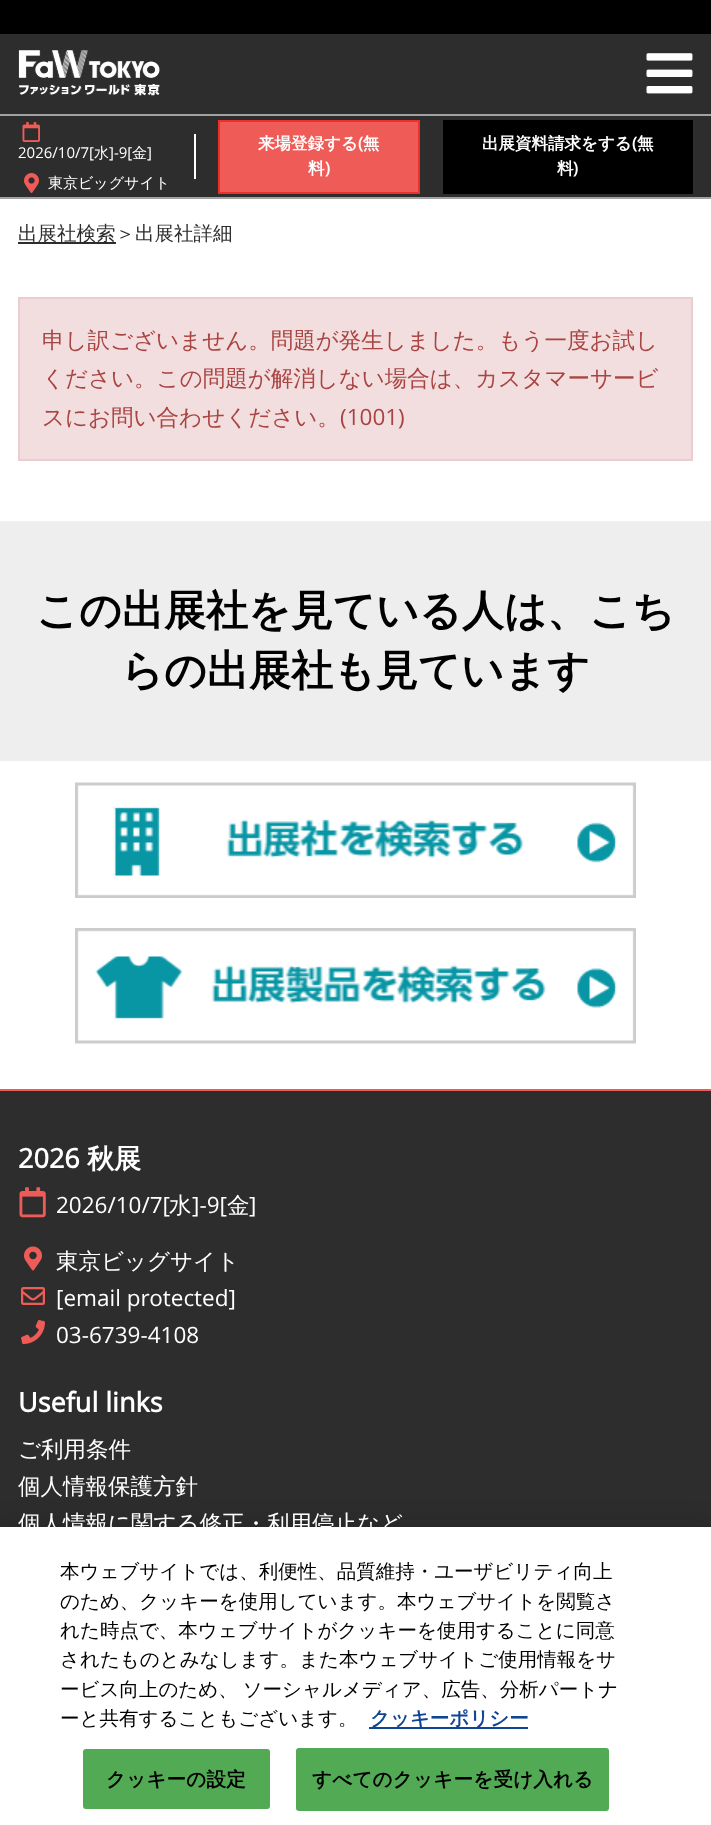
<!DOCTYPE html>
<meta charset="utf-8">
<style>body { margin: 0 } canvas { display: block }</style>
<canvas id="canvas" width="711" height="1825"></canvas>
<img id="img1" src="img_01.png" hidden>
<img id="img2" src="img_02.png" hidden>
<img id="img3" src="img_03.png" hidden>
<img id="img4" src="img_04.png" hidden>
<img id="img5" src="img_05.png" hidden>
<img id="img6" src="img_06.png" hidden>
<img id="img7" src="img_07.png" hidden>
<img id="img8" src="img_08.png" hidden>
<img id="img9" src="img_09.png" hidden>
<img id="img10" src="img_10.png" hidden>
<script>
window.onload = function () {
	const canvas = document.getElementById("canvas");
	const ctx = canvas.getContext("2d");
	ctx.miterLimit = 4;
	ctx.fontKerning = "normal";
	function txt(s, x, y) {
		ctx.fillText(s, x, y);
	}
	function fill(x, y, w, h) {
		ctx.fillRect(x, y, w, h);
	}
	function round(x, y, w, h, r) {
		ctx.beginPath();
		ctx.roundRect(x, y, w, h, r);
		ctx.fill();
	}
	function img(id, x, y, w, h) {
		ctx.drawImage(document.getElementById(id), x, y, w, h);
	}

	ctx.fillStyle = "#FFFFFF";
	fill(0, 0, 711, 1825);
	ctx.fillStyle = "#000000";
	fill(0, 0, 711, 34);
	ctx.fillStyle = "#2D2D2D";
	fill(0, 34, 711, 163);
	ctx.fillStyle = "#A2A2A2";
	fill(0, 114, 711, 2);
	img("img1", 18, 49, 142, 47);
	img("img2", 646, 53, 47, 41);
	fill(0, 197, 711, 2);
	ctx.fillStyle = "#FFFFFF";
	fill(194, 134, 2, 45);
	img("img3", 22, 122, 18, 20);
	img("img4", 24, 173, 15, 20);
	ctx.fillStyle = "#EF5B57";
	ctx.beginPath();
	ctx.rect(219, 121, 200, 72);
	ctx.fill();
	ctx.strokeStyle = "#EB2F2A";
	ctx.lineWidth = 2;
	ctx.stroke();
	ctx.fillStyle = "#000000";
	fill(443, 120, 250, 74);
	ctx.fillStyle = "#2D2D2D";
	fill(18, 242, 98, 2);
	ctx.fillStyle = "#F2DEDE";
	ctx.beginPath();
	ctx.rect(19, 298, 673, 162);
	ctx.fill();
	ctx.strokeStyle = "#EBCCD1";
	ctx.stroke();
	ctx.fillStyle = "#EEEEEE";
	fill(0, 521, 711, 240);
	img("img5", 75, 782, 561, 116);
	img("img6", 75, 928, 561, 116);
	ctx.fillStyle = "#2D2D2D";
	fill(0, 1091, 711, 436);
	ctx.fillStyle = "#EF5B57";
	fill(0, 1089, 711, 2);
	img("img7", 19, 1187, 27, 31);
	img("img8", 24, 1246, 18, 25);
	img("img9", 21, 1287, 24, 18);
	img("img10", 21, 1320, 24, 24);
	ctx.fillStyle = "rgba(0, 0, 0, 0.2)";
	ctx.filter = "blur(13.5px)";
	ctx.beginPath();
	ctx.rect(0, 1527, 711, 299);
	ctx.fill();
	ctx.filter = "none";
	ctx.fillStyle = "#FFFFFF";
	fill(0, 1527, 711, 298);
	ctx.fillStyle = "#104593";
	fill(369, 1727, 159, 2);
	ctx.fillStyle = "#52AA55";
	round(83, 1749, 187, 60, 3);
	ctx.beginPath();
	ctx.roundRect(297, 1749, 311, 61, 2);
	ctx.fill();
	ctx.strokeStyle = "#52AA55";
	ctx.stroke();
	ctx.font = "15px Open Sans";
	ctx.fillStyle = "#FFFFFF";
	txt("2026/10/7[", 18, 158);
	ctx.font = "500 15px WenQuanYi Zen Hei";
	txt("水", 94, 158);
	ctx.font = "15px Open Sans";
	txt("]-9[", 109, 158);
	ctx.font = "500 15px WenQuanYi Zen Hei";
	txt("金", 132, 158);
	ctx.font = "15px Open Sans";
	txt("]", 147, 158);
	ctx.font = "500 15px WenQuanYi Zen Hei";
	txt("東京ビッグサイト", 48, 188);
	ctx.font = "bold 16.5px WenQuanYi Zen Hei";
	txt("来場登録する 無", 258, 149);
	ctx.font = "bold 16.5px Open Sans";
	txt("(", 358, 149);
	ctx.font = "bold 16.5px WenQuanYi Zen Hei";
	txt("料", 308, 174);
	ctx.font = "bold 16.5px Open Sans";
	txt(")", 325, 174);
	ctx.font = "bold 16.5px WenQuanYi Zen Hei";
	txt("出展資料請求をする", 482, 149);
	ctx.font = "bold 16.5px Open Sans";
	txt("(", 632, 149);
	ctx.font = "bold 16.5px WenQuanYi Zen Hei";
	txt("無", 637, 149);
	txt("料", 557, 174);
	ctx.font = "bold 16.5px Open Sans";
	txt(")", 573, 174);
	ctx.font = "500 19.5px WenQuanYi Zen Hei";
	ctx.fillStyle = "#2D2D2D";
	txt("出展社検索＞出展社詳細", 18, 240);
	ctx.font = "500 22.5px WenQuanYi Zen Hei";
	ctx.fillStyle = "#A94442";
	txt("申し訳ございません。問題が発生しました。もう一度お試し", 42, 348);
	txt("ください。この問題が解消しない場合は、カスタマーサービ", 42, 386);
	txt("スにお問い合わせください。", 42, 425);
	ctx.font = "22.5px Open Sans";
	txt("(1001)", 340, 425);
	ctx.font = "bold 42px WenQuanYi Zen Hei";
	ctx.fillStyle = "#000000";
	txt("この出展社を見ている人は、こち", 36, 625);
	txt("らの出展社も見ています", 121, 685);
	ctx.font = "bold 27px Open Sans";
	ctx.fillStyle = "#FFFFFF";
	txt("2026", 18, 1168);
	ctx.font = "bold 27px WenQuanYi Zen Hei";
	txt("秋展", 87, 1168);
	ctx.font = "22.5px Open Sans";
	txt("2026/10/7[", 56, 1213);
	ctx.font = "500 22.5px WenQuanYi Zen Hei";
	txt("水", 169, 1213);
	ctx.font = "22.5px Open Sans";
	txt("]-9[", 192, 1213);
	ctx.font = "500 22.5px WenQuanYi Zen Hei";
	txt("金", 227, 1213);
	ctx.font = "22.5px Open Sans";
	txt("]", 249, 1213);
	ctx.font = "500 22.5px WenQuanYi Zen Hei";
	txt("東京ビッグサイト", 56, 1269);
	ctx.font = "22.5px Open Sans";
	txt("[email protected]", 56, 1306);
	txt("03-6739-4108", 56, 1343);
	ctx.font = "bold 27px Open Sans";
	txt("Useful links", 18, 1412);
	ctx.font = "500 22.5px WenQuanYi Zen Hei";
	txt("ご利用条件", 18, 1457);
	txt("個人情報保護方針", 18, 1494);
	txt("個人情報に関する修正・利用停止など", 18, 1531);
	ctx.font = "500 19.5px WenQuanYi Zen Hei";
	ctx.fillStyle = "#000000";
	txt("本ウェブサイトでは、利便性、品質維持・ユーザビリティ向上", 60, 1578);
	txt("のため、クッキーを使用しています。本ウェブサイトを閲覧さ", 60, 1608);
	txt("れた時点で、本ウェブサイトがクッキーを使用することに同意", 60, 1637);
	txt("されたものとみなします。また本ウェブサイトご使用情報をサ", 60, 1666);
	ctx.wordSpacing = "-1px";
	txt("ービス向上のため、 ソーシャルメディア、広告、分析パートナ", 60, 1696);
	ctx.wordSpacing = "0px";
	txt("ーと共有することもございます。", 60, 1725);
	ctx.font = "bold 19.5px WenQuanYi Zen Hei";
	ctx.fillStyle = "#104593";
	txt("クッキーポリシー", 370, 1725);
	ctx.letterSpacing = "0.25px";
	ctx.fillStyle = "#000000";
	txt("クッキーの設定", 106, 1786);
	txt("すべてのクッキーを受け入れる", 312, 1786);
};
</script>
